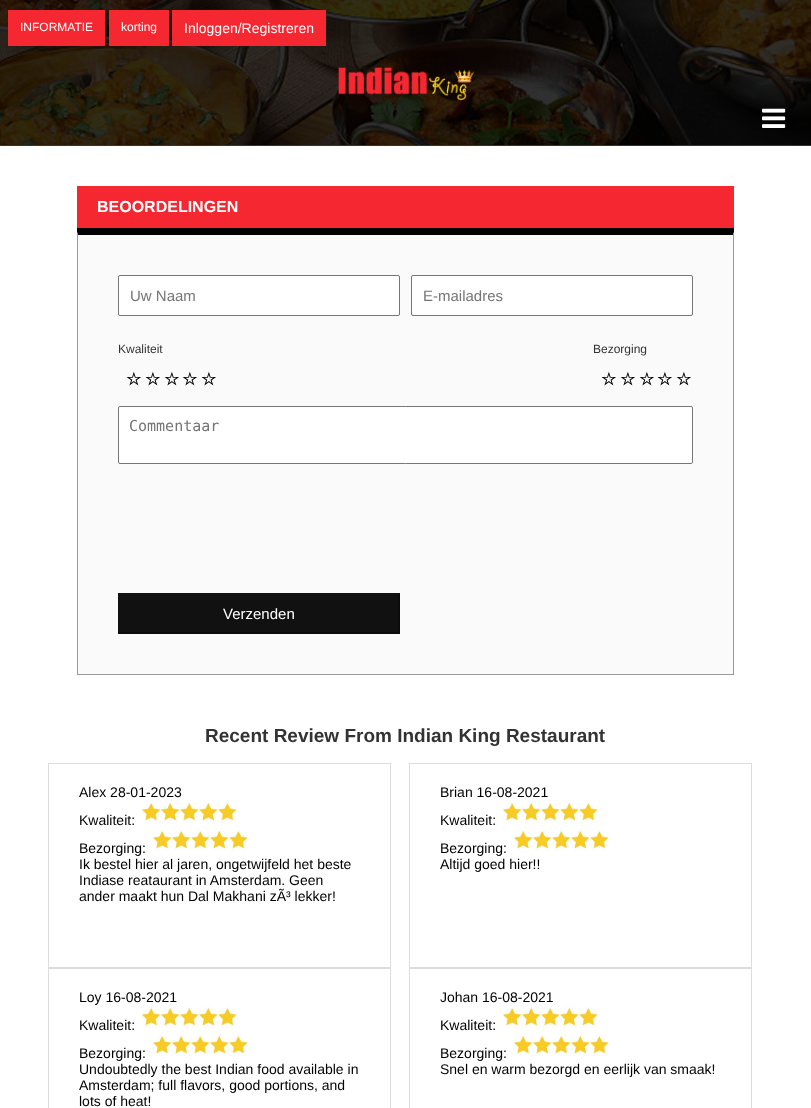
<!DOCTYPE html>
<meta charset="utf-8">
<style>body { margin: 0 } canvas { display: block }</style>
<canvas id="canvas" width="811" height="1108"></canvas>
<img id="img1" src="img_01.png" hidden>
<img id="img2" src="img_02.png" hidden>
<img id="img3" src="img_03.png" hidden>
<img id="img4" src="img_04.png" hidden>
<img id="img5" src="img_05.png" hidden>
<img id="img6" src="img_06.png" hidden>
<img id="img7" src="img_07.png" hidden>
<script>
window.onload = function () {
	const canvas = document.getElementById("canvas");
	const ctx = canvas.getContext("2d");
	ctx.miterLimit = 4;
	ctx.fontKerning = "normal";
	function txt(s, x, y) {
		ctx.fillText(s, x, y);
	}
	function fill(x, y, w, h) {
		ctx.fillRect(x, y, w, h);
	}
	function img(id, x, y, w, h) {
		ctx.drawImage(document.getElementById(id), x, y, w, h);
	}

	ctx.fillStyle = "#FFFFFF";
	fill(0, 0, 811, 1108);
	img("img1", 0, 0, 811, 145);
	ctx.fillStyle = "#333333";
	fill(0, 145, 811, 1);
	ctx.fillStyle = "#F52832";
	fill(8, 10, 97, 36);
	fill(109, 10, 60, 36);
	fill(172, 10, 154, 36);
	img("img2", 338, 67, 136, 34);
	img("img3", 762, 108, 24, 20);
	fill(77, 186, 657, 42);
	ctx.fillStyle = "#000000";
	fill(77, 228, 657, 4);
	ctx.fillStyle = "#FAFAFA";
	fill(78, 235, 655, 439);
	ctx.fillStyle = "#000000";
	ctx.beginPath();
	ctx.moveTo(77, 232);
	ctx.lineTo(734, 232);
	ctx.lineTo(733, 235);
	ctx.lineTo(78, 235);
	ctx.closePath();
	ctx.fill();
	ctx.fillStyle = "#999999";
	ctx.beginPath();
	ctx.moveTo(734, 232);
	ctx.lineTo(734, 675);
	ctx.lineTo(733, 674);
	ctx.lineTo(733, 235);
	ctx.closePath();
	ctx.fill();
	fill(77, 674, 657, 1);
	ctx.beginPath();
	ctx.moveTo(77, 675);
	ctx.lineTo(77, 232);
	ctx.lineTo(78, 235);
	ctx.lineTo(78, 674);
	ctx.closePath();
	ctx.fill();
	ctx.fillStyle = "#FFFFFF";
	ctx.beginPath();
	ctx.roundRect(118.5, 275.5, 281, 40, 1.5);
	ctx.fill();
	ctx.strokeStyle = "#767676";
	ctx.stroke();
	ctx.beginPath();
	ctx.roundRect(411.5, 275.5, 281, 40, 1.5);
	ctx.fill();
	ctx.stroke();
	ctx.beginPath();
	ctx.roundRect(118.5, 406.5, 574, 57, 1.5);
	ctx.fill();
	ctx.stroke();
	ctx.fillStyle = "#111111";
	fill(118, 593, 282, 41);
	ctx.fillStyle = "#0B0B0B";
	ctx.beginPath();
	ctx.moveTo(400, 593);
	ctx.lineTo(400, 634);
	ctx.lineTo(398, 632);
	ctx.lineTo(398, 595);
	ctx.closePath();
	ctx.fill();
	ctx.beginPath();
	ctx.moveTo(400, 634);
	ctx.lineTo(118, 634);
	ctx.lineTo(120, 632);
	ctx.lineTo(398, 632);
	ctx.closePath();
	ctx.fill();
	ctx.strokeStyle = "#DDDDDD";
	ctx.strokeRect(48.5, 763.5, 342, 204);
	img("img4", 142, 800, 95, 23);
	img("img5", 153, 828, 95, 23);
	ctx.strokeRect(409.5, 763.5, 342, 204);
	img("img6", 503, 800, 95, 23);
	img("img5", 514, 828, 95, 23);
	ctx.strokeRect(48.5, 968.5, 342, 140);
	img("img7", 142, 1005, 95, 23);
	img("img5", 153, 1033, 95, 23);
	ctx.strokeRect(409.5, 968.5, 342, 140);
	img("img5", 503, 1005, 95, 23);
	img("img5", 514, 1033, 95, 23);
	ctx.font = "12px Liberation Sans";
	ctx.fillStyle = "#FFFFFF";
	txt("INFORMATIE", 20, 31);
	txt("korting", 121, 31);
	ctx.font = "14px Liberation Sans";
	txt("Inloggen/Registreren", 184, 33);
	ctx.font = "bold 16px Liberation Sans";
	txt("BEOORDELINGEN", 97, 212);
	ctx.font = "15px Liberation Sans";
	ctx.fillStyle = "#757575";
	txt("Uw Naam", 130, 301);
	txt("E-mailadres", 423, 301);
	ctx.font = "12px Liberation Sans";
	ctx.fillStyle = "#333333";
	txt("Kwaliteit", 118, 353);
	ctx.font = "bold 17px DejaVu Sans";
	ctx.fillStyle = "#000000";
	txt("☆", 126, 385);
	txt("☆", 145, 385);
	txt("☆", 164, 385);
	txt("☆", 182, 385);
	txt("☆", 201, 385);
	ctx.font = "12px Liberation Sans";
	ctx.fillStyle = "#333333";
	txt("Bezorging", 593, 353);
	ctx.font = "bold 17px DejaVu Sans";
	ctx.fillStyle = "#000000";
	txt("☆", 601, 385);
	txt("☆", 620, 385);
	txt("☆", 639, 385);
	txt("☆", 657, 385);
	txt("☆", 676, 385);
	ctx.font = "15px DejaVu Sans Mono";
	ctx.fillStyle = "#757575";
	txt("Commentaar", 129, 431);
	ctx.font = "15px Liberation Sans";
	ctx.fillStyle = "#FFFFFF";
	txt("Verzenden", 223, 619);
	ctx.font = "bold 19px Liberation Sans";
	ctx.fillStyle = "#333333";
	txt("Recent Review From Indian King Restaurant", 205, 742);
	ctx.font = "14px Liberation Sans";
	ctx.fillStyle = "#000000";
	txt("Alex 28-01-2023", 79, 797);
	txt("Kwaliteit:", 79, 825);
	txt("Bezorging:", 79, 853);
	txt("Ik bestel hier al jaren, ongetwijfeld het beste", 79, 869);
	txt("Indiase reataurant in Amsterdam. Geen", 79, 885);
	txt("ander maakt hun Dal Makhani zÃ³ lekker!", 79, 901);
	txt("Brian 16-08-2021", 440, 797);
	txt("Kwaliteit:", 440, 825);
	txt("Bezorging:", 440, 853);
	txt("Altijd goed hier!!", 440, 869);
	txt("Loy 16-08-2021", 79, 1002);
	txt("Kwaliteit:", 79, 1030);
	txt("Bezorging:", 79, 1058);
	txt("Undoubtedly the best Indian food available in", 79, 1074);
	txt("Amsterdam; full flavors, good portions, and", 79, 1090);
	txt("lots of heat!", 79, 1106);
	txt("Johan 16-08-2021", 440, 1002);
	txt("Kwaliteit:", 440, 1030);
	txt("Bezorging:", 440, 1058);
	txt("Snel en warm bezorgd en eerlijk van smaak!", 440, 1074);
};
</script>
